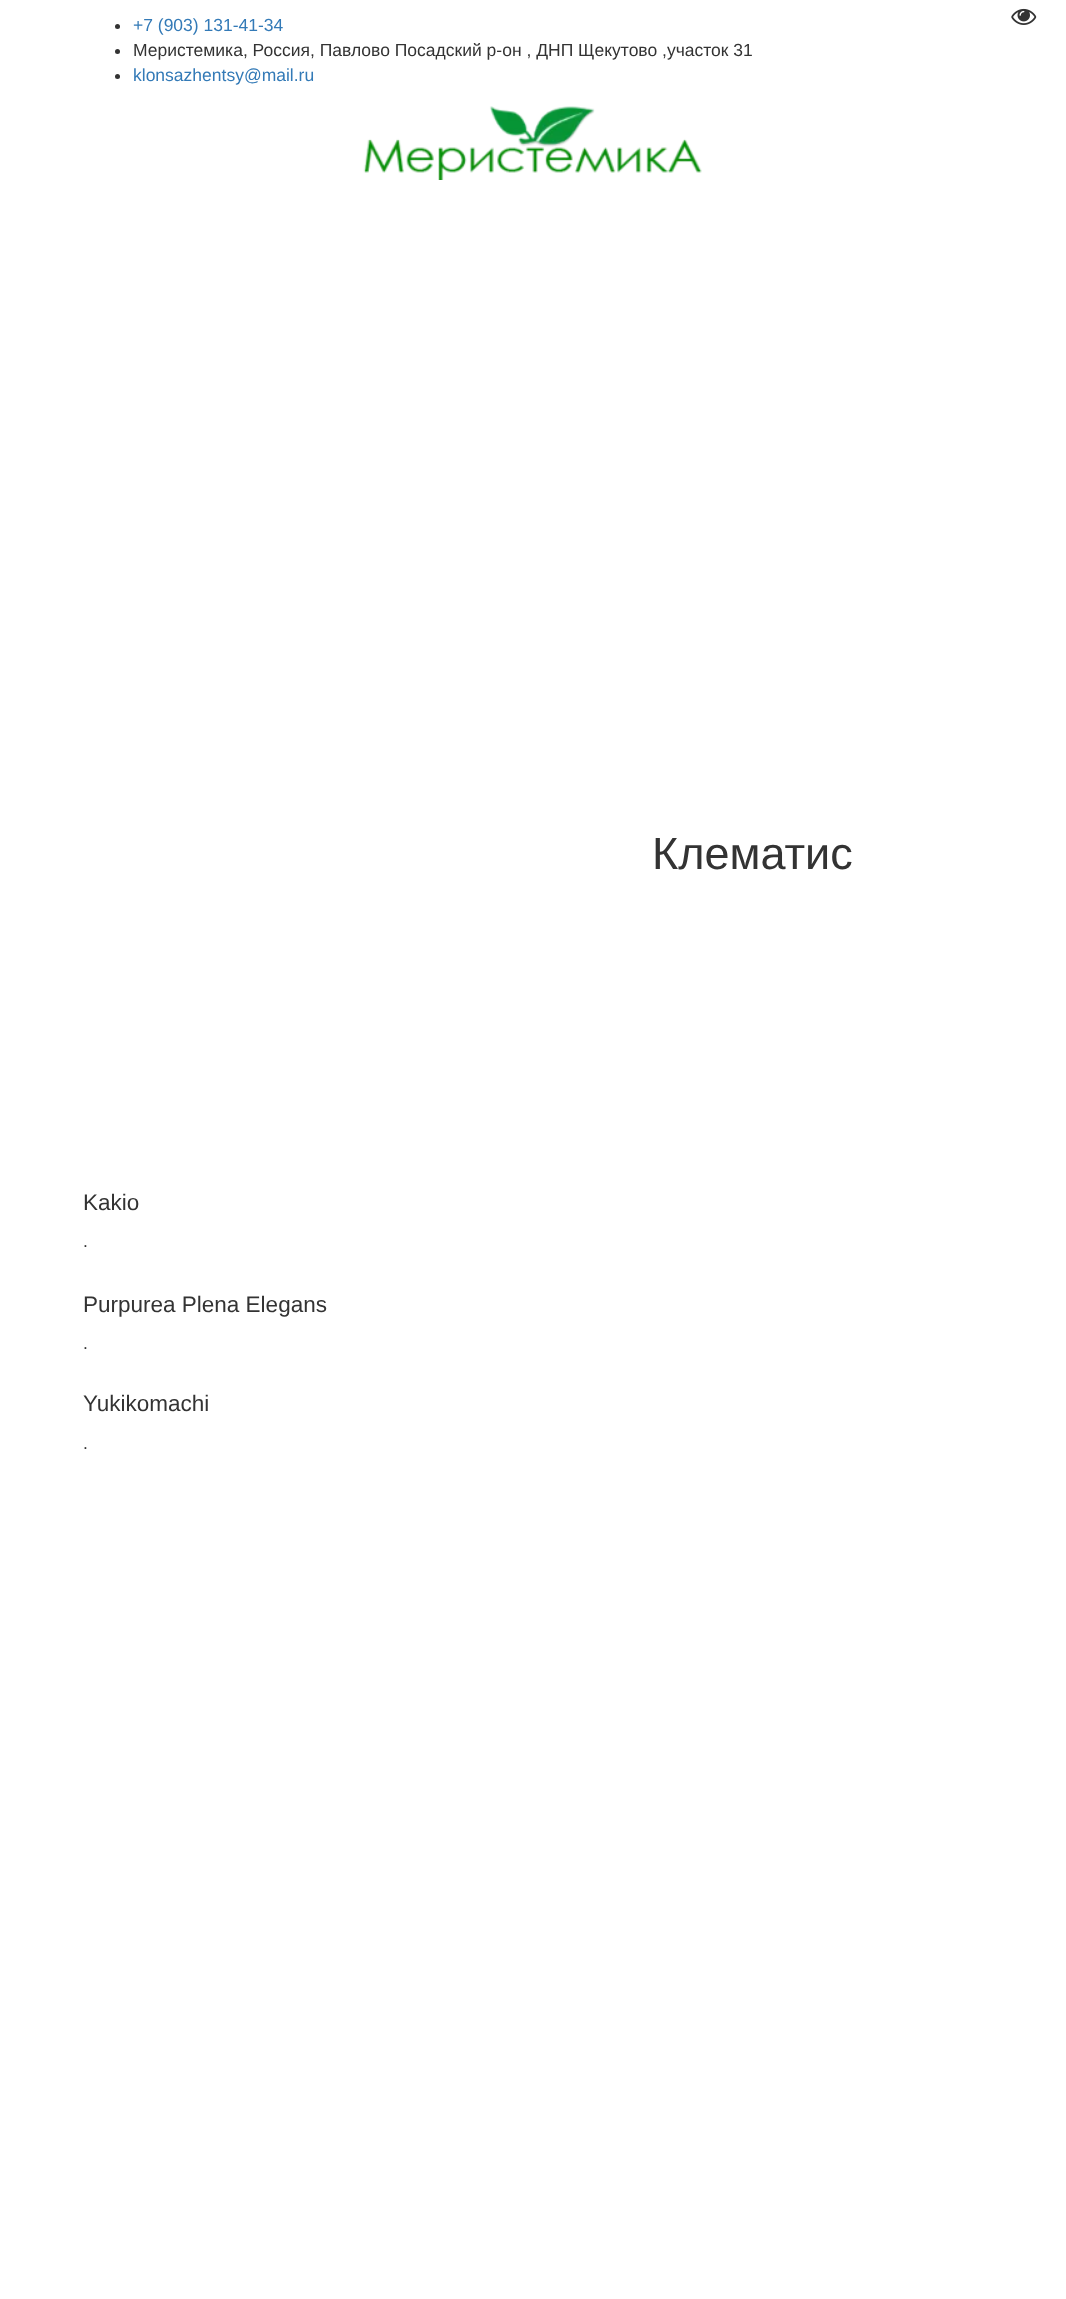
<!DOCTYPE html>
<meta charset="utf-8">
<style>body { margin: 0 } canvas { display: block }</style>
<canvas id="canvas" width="1066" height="2299"></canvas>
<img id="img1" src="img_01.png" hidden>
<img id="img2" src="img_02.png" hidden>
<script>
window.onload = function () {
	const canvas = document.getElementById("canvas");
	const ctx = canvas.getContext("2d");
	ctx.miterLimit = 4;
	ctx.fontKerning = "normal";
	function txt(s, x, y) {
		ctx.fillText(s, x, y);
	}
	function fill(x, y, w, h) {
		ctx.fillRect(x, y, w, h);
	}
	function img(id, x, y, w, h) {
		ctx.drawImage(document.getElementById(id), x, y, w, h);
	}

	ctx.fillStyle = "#FFFFFF";
	fill(0, 0, 1066, 2299);
	ctx.fillStyle = "#333333";
	ctx.beginPath();
	ctx.arc(117.5, 26.5, 2.5, 0, Math.PI * 2);
	ctx.fill();
	ctx.beginPath();
	ctx.arc(117.5, 51.5, 2.5, 0, Math.PI * 2);
	ctx.fill();
	ctx.beginPath();
	ctx.arc(117.5, 76.5, 2.5, 0, Math.PI * 2);
	ctx.fill();
	img("img1", 363, 106, 339, 74);
	img("img2", 1011, 8, 26, 17);
	ctx.font = "17.5px Liberation Sans";
	ctx.fillStyle = "#337AB7";
	txt("+7 (903) 131-41-34", 133, 31);
	ctx.fillStyle = "#333333";
	txt("Меристемика, Россия, Павлово Посадский р-он , ДНП Щекутово ,участок 31", 133, 56);
	ctx.fillStyle = "#337AB7";
	txt("klonsazhentsy@mail.ru", 133, 81);
	ctx.font = "45px Liberation Sans";
	ctx.fillStyle = "#333333";
	txt("Клематис", 652, 869);
	ctx.font = "22.5px Liberation Sans";
	txt("Kakio", 83, 1210);
	ctx.font = "17.5px Liberation Sans";
	txt(".", 83, 1247);
	ctx.font = "22.5px Liberation Sans";
	txt("Purpurea Plena Elegans", 83, 1312);
	ctx.font = "17.5px Liberation Sans";
	txt(".", 83, 1349);
	ctx.font = "22.5px Liberation Sans";
	txt("Yukikomachi", 83, 1411);
	ctx.font = "17.5px Liberation Sans";
	txt(".", 83, 1449);
};
</script>
